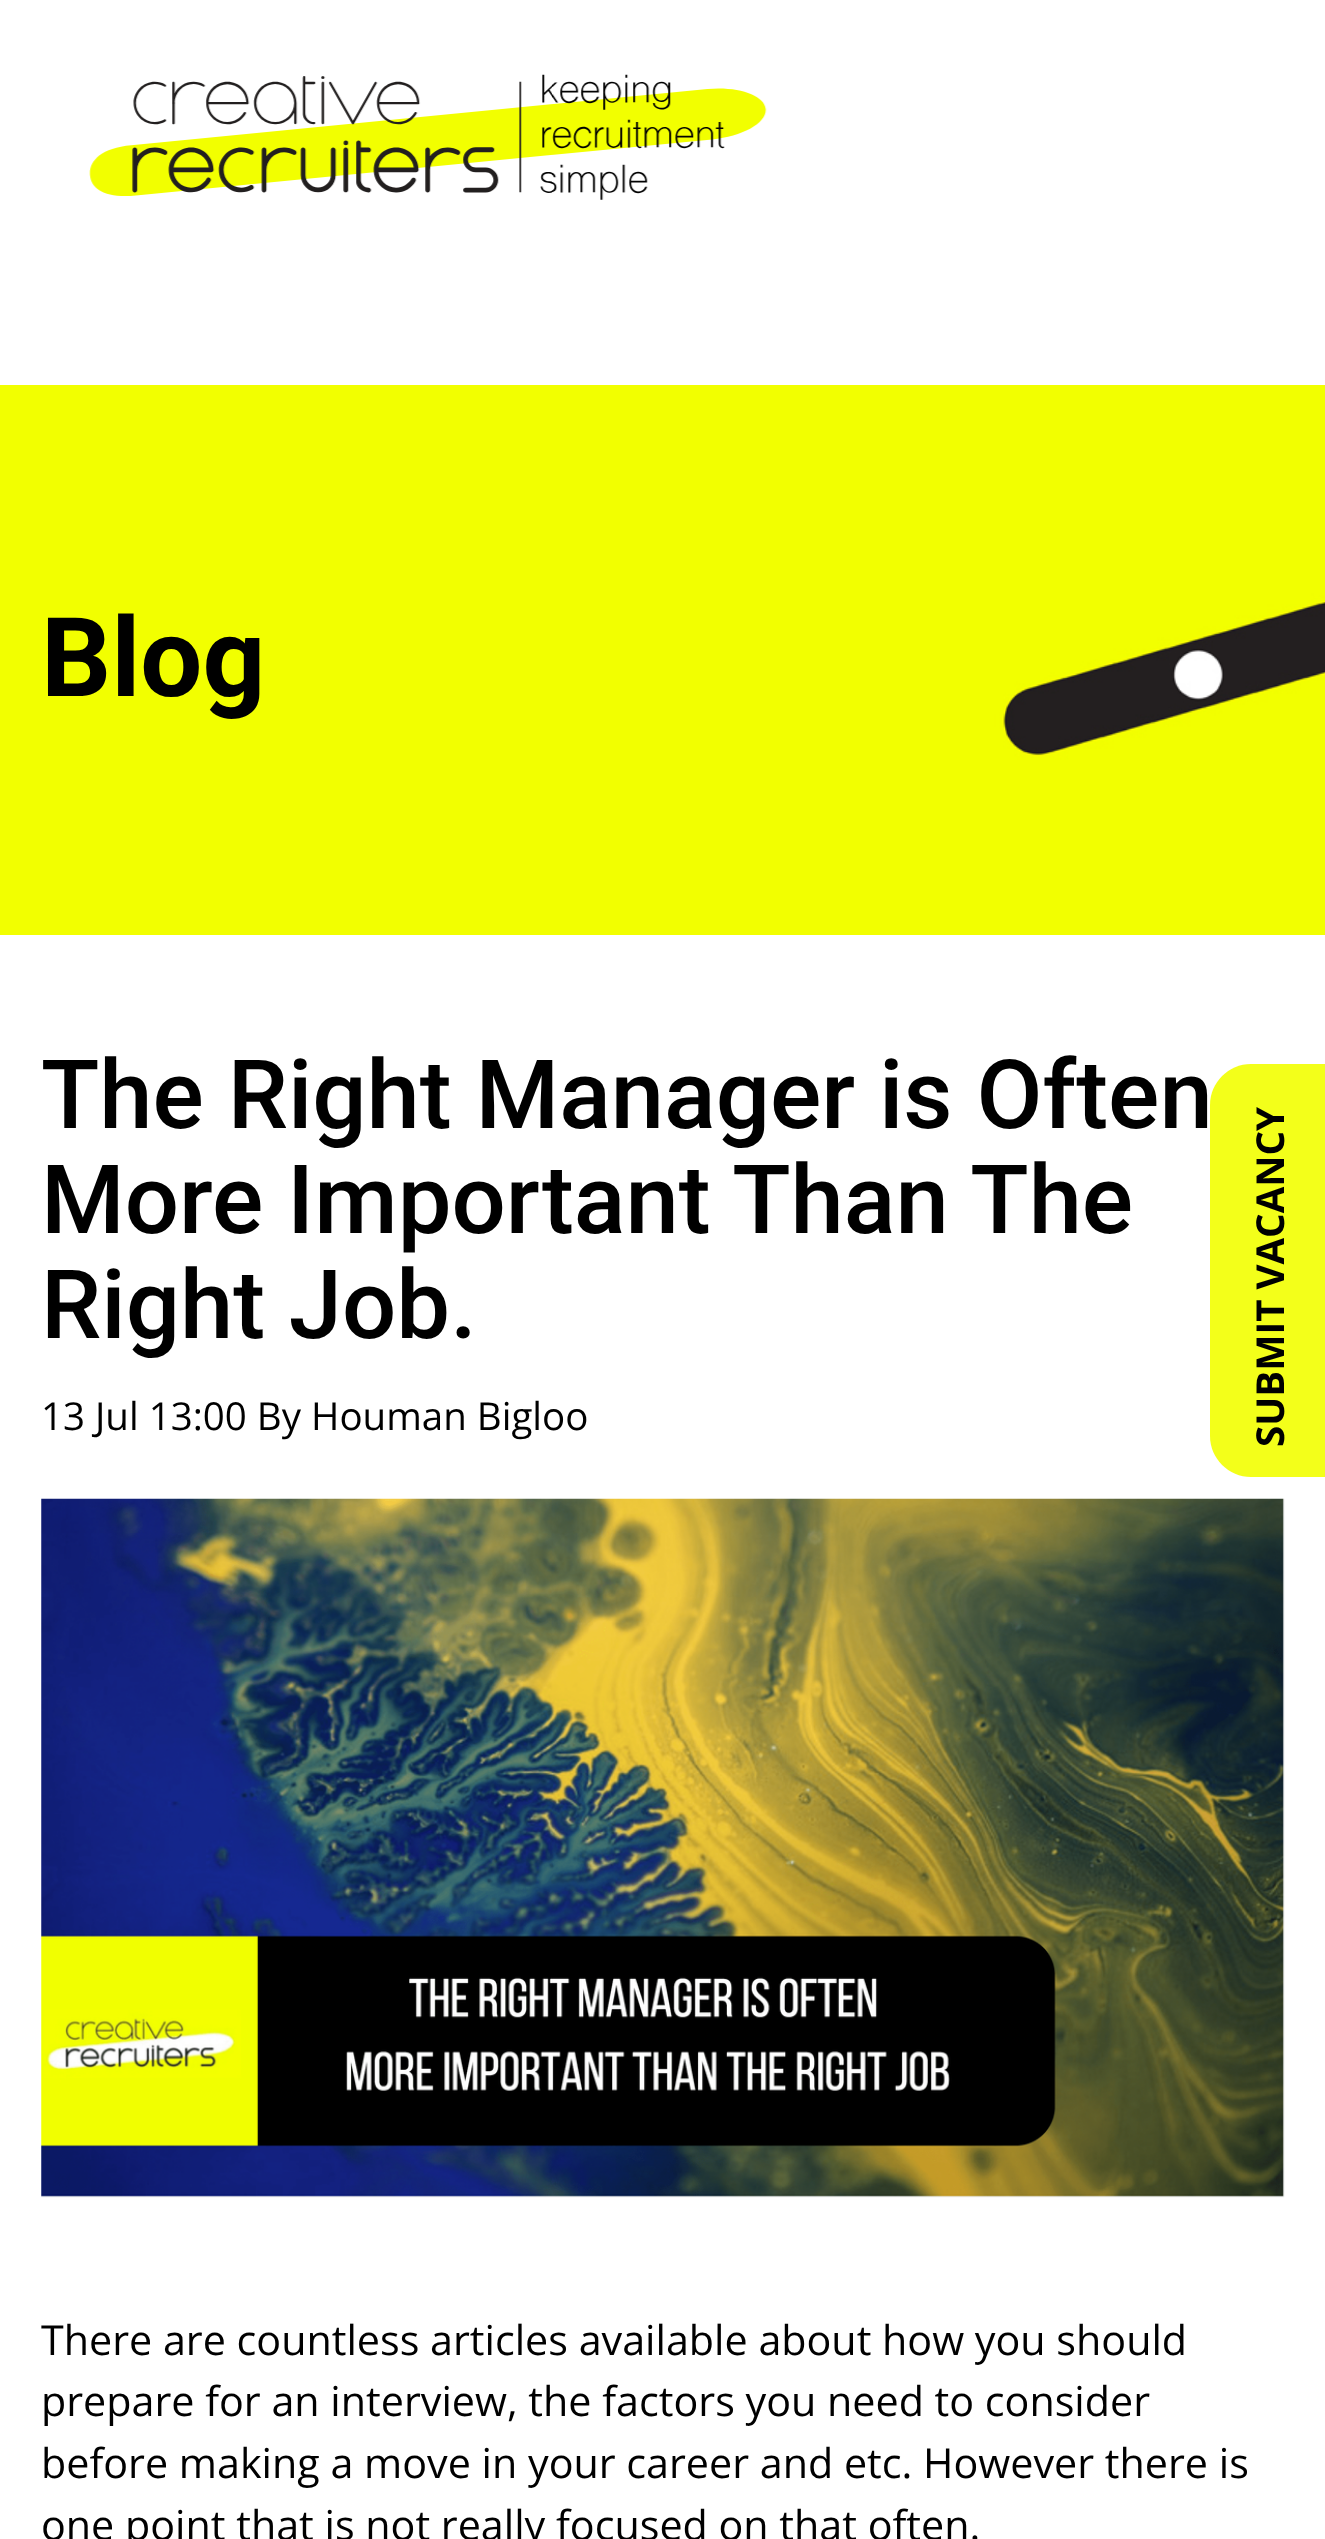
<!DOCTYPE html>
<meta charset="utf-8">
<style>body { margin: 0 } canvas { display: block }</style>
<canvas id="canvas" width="1325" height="2539"></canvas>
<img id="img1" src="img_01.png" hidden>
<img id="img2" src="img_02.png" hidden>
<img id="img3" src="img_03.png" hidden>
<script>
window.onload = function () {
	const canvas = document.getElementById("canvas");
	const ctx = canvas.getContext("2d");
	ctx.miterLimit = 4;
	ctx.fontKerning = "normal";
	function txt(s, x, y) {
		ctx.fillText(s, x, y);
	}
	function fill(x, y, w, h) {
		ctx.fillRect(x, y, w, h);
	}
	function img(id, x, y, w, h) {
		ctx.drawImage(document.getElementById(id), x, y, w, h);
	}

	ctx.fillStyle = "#FFFFFF";
	fill(0, 0, 1325, 2539);
	img("img1", 89, 74, 678, 126);
	img("img2", 0, 385, 1325, 550);
	img("img3", 41, 1498, 1244, 700);
	ctx.fillStyle = "#F3FF1A";
	ctx.beginPath();
	ctx.moveTo(1251, 1064);
	ctx.lineTo(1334, 1064);
	ctx.lineTo(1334, 1477);
	ctx.lineTo(1251, 1477);
	ctx.bezierCurveTo(1228.5, 1477, 1210, 1458.5, 1210, 1436);
	ctx.lineTo(1210, 1105);
	ctx.bezierCurveTo(1210, 1082.5, 1228.5, 1064, 1251, 1064);
	ctx.closePath();
	ctx.fill();
	ctx.font = "bold 110px Roboto";
	ctx.fillStyle = "#000000";
	txt("Blog", 41, 696);
	ctx.font = "500 95.75px Roboto";
	txt("The Right Manager is Often", 41, 1128);
	txt("More Important Than The", 41, 1233);
	txt("Right Job.", 41, 1338);
	ctx.font = "38.5px Open Sans";
	txt("13 Jul 13:00 By Houman Bigloo", 41, 1430);
	ctx.font = "41.25px Open Sans";
	txt("There are countless articles available about how you should", 41, 2355);
	txt("prepare for an interview, the factors you need to consider", 41, 2416);
	txt("before making a move in your career and etc. However there is", 41, 2478);
	txt("one point that is not really focused on that often.", 41, 2540);
	ctx.font = "bold 38.5px Open Sans";
	ctx.save();
	ctx.translate(1284, 1447);
	ctx.rotate(-90 * Math.PI / 180);
	ctx.fillText("SUBMIT VACANCY", 0, 0);
	ctx.restore();
};
</script>
